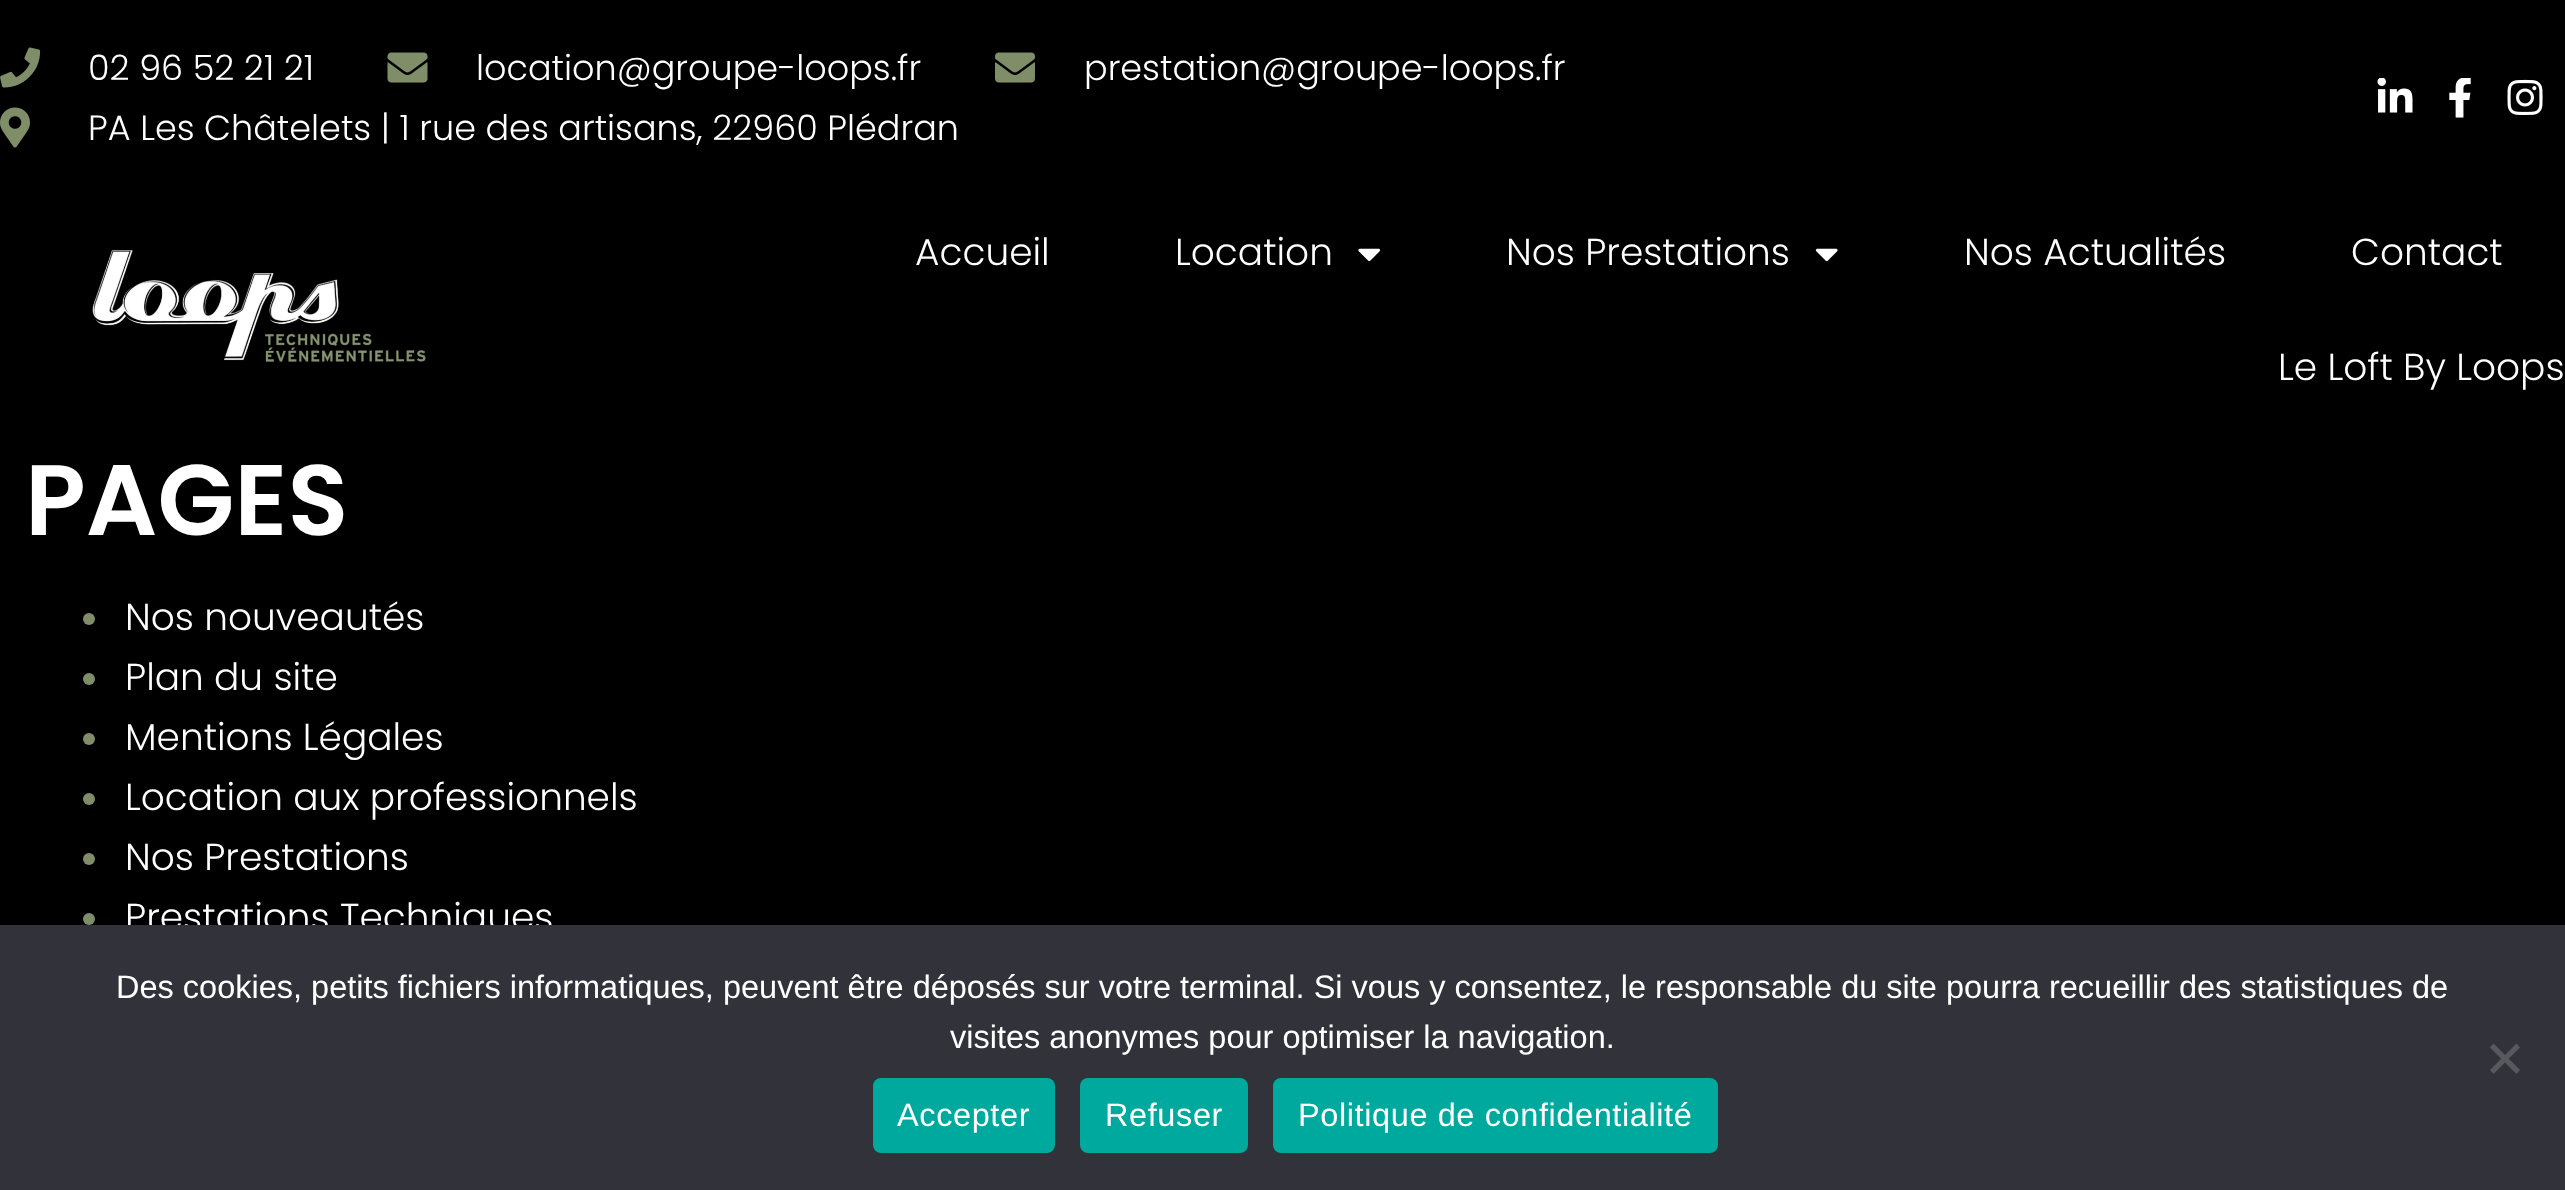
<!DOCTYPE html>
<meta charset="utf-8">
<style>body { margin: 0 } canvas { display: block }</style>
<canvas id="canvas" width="2565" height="1190"></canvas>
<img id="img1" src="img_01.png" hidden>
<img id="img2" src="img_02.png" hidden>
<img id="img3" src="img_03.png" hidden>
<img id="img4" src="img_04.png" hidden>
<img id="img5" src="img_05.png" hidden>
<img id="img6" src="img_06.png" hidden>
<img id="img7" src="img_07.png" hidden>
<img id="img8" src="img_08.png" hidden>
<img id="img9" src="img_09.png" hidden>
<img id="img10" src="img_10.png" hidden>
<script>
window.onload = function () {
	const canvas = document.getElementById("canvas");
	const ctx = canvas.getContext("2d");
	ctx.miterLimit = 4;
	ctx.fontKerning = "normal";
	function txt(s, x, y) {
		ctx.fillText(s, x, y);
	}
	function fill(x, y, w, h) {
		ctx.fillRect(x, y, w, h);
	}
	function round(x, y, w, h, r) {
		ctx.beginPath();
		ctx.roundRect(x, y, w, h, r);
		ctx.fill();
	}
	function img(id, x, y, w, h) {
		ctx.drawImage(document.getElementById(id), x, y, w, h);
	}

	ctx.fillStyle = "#000000";
	fill(0, 0, 2565, 1190);
	img("img1", 0, 47, 41, 41);
	img("img2", 387, 52, 41, 31);
	img("img3", 995, 52, 40, 31);
	img("img4", 0, 107, 30, 41);
	img("img5", 2377, 78, 36, 35);
	img("img6", 2449, 78, 22, 40);
	img("img7", 2507, 79, 36, 36);
	img("img8", 92, 250, 334, 112);
	img("img9", 1358, 248, 23, 14);
	img("img10", 1815, 248, 23, 14);
	ctx.fillStyle = "#808D69";
	ctx.beginPath();
	ctx.arc(89, 619, 6, 0, Math.PI * 2);
	ctx.fill();
	ctx.beginPath();
	ctx.arc(89, 679, 6, 0, Math.PI * 2);
	ctx.fill();
	ctx.beginPath();
	ctx.arc(89, 739, 6, 0, Math.PI * 2);
	ctx.fill();
	ctx.beginPath();
	ctx.arc(89, 799, 6, 0, Math.PI * 2);
	ctx.fill();
	ctx.beginPath();
	ctx.arc(89, 859, 6, 0, Math.PI * 2);
	ctx.fill();
	ctx.beginPath();
	ctx.arc(89, 919, 6, 0, Math.PI * 2);
	ctx.fill();
	ctx.font = "300 35px Poppins";
	ctx.fillStyle = "#FFFFFF";
	txt("02 96 52 21 21", 88, 80);
	txt("location@groupe-loops.fr", 476, 80);
	txt("prestation@groupe-loops.fr", 1084, 80);
	txt("PA Les Châtelets | 1 rue des artisans, 22960 Plédran", 88, 140);
	ctx.font = "300 37.5px Poppins";
	txt("Accueil", 915, 265);
	txt("Location", 1175, 265);
	txt("Nos Prestations", 1506, 265);
	txt("Nos Actualités", 1964, 265);
	txt("Contact", 2351, 265);
	txt("Le Loft By Loops", 2278, 380);
	ctx.font = "600 100px Poppins";
	txt("PAGES", 25, 535);
	ctx.font = "300 37.5px Poppins";
	txt("Nos nouveautés", 125, 630);
	txt("Plan du site", 125, 690);
	txt("Mentions Légales", 125, 750);
	txt("Location aux professionnels", 125, 810);
	txt("Nos Prestations", 125, 870);
	txt("Prestations Techniques", 125, 930);
	ctx.fillStyle = "#32323A";
	fill(0, 925, 2565, 265);
	ctx.font = "32.5px Liberation Sans";
	ctx.fillStyle = "#FFFFFF";
	txt("Des cookies, petits fichiers informatiques, peuvent être déposés sur votre terminal. Si vous y consentez, le responsable du site pourra recueillir des statistiques de", 116, 998);
	txt("visites anonymes pour optimiser la navigation.", 950, 1048);
	ctx.fillStyle = "#59595D";
	ctx.beginPath();
	ctx.moveTo(2516.5, 1043.5);
	ctx.lineTo(2520, 1047.5);
	ctx.lineTo(2493.5, 1074);
	ctx.lineTo(2490, 1070);
	ctx.closePath();
	ctx.fill();
	ctx.beginPath();
	ctx.moveTo(2490, 1047.5);
	ctx.lineTo(2493.5, 1043.5);
	ctx.lineTo(2520, 1070);
	ctx.lineTo(2516.5, 1074);
	ctx.closePath();
	ctx.fill();
	ctx.fillStyle = "#00A99D";
	round(873, 1078, 182, 75, 8);
	ctx.letterSpacing = "0.6px";
	ctx.fillStyle = "#FFFFFF";
	txt("Accepter", 897, 1126);
	ctx.fillStyle = "#00A99D";
	round(1080, 1078, 168, 75, 8);
	ctx.fillStyle = "#FFFFFF";
	txt("Refuser", 1105, 1126);
	ctx.fillStyle = "#00A99D";
	round(1273, 1078, 445, 75, 8);
	ctx.fillStyle = "#FFFFFF";
	txt("Politique de confidentialité", 1298, 1126);
};
</script>
